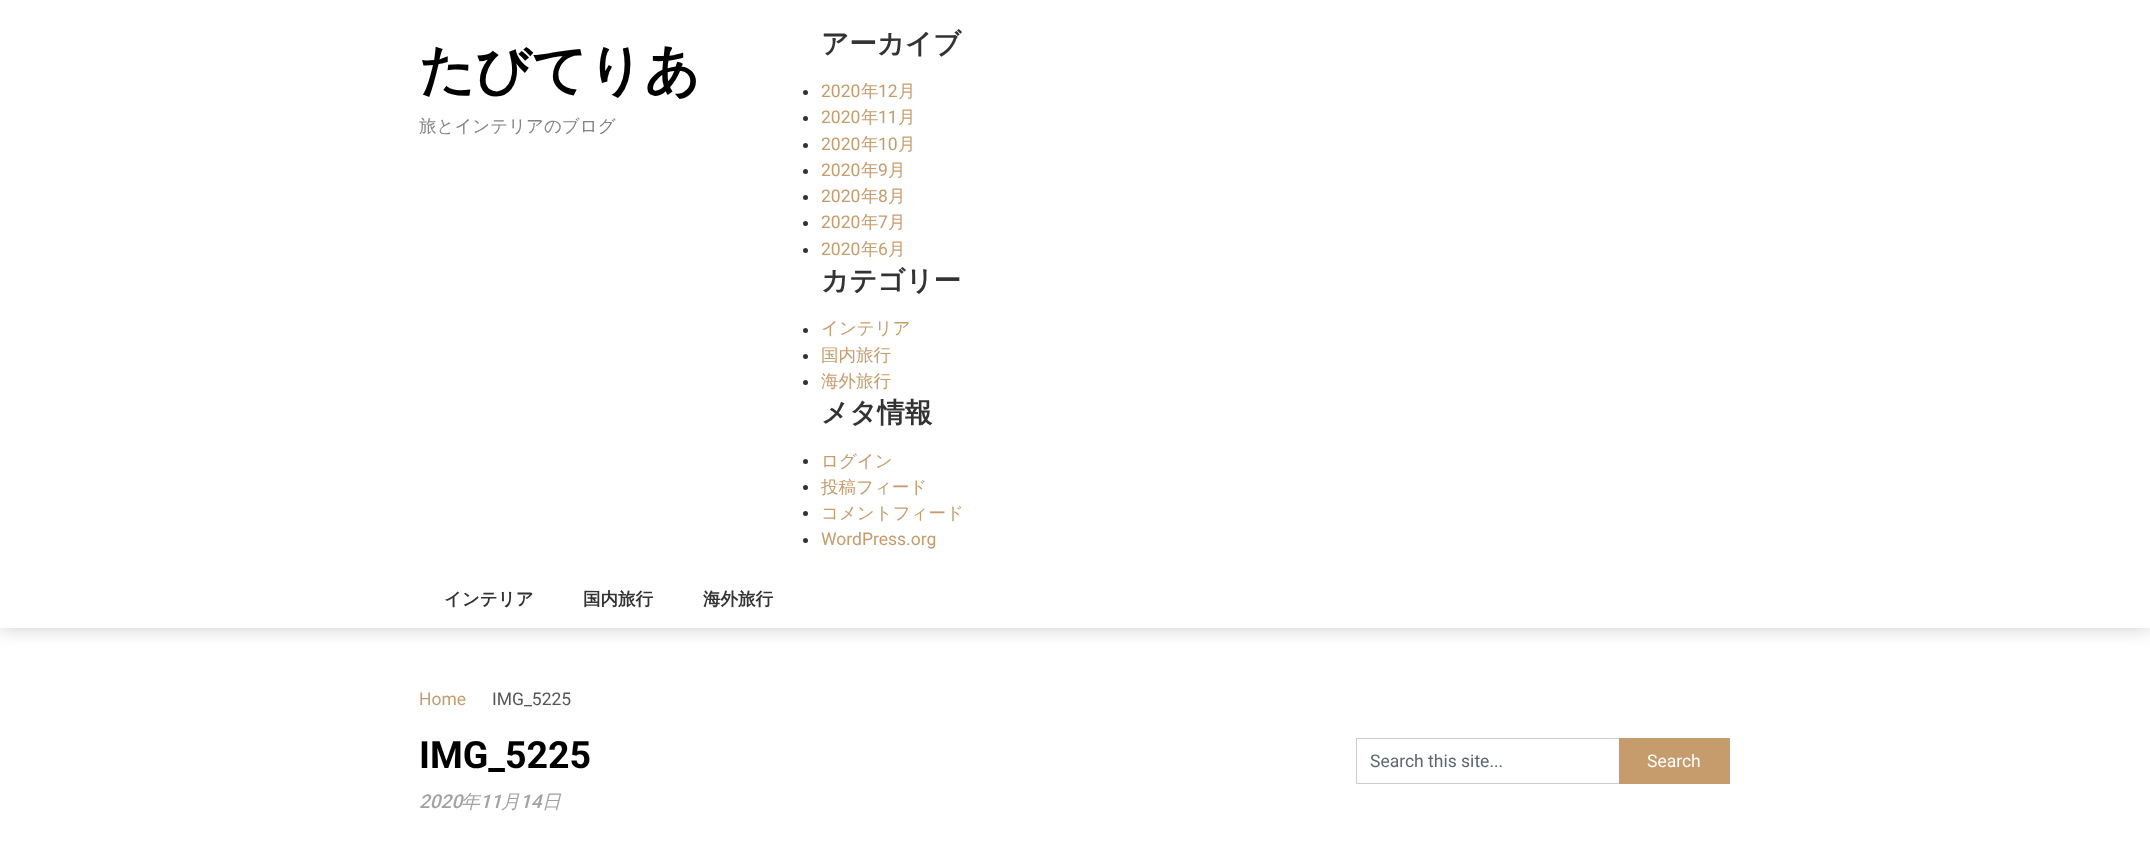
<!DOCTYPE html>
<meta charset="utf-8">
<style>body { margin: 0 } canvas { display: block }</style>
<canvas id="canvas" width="2150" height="849"></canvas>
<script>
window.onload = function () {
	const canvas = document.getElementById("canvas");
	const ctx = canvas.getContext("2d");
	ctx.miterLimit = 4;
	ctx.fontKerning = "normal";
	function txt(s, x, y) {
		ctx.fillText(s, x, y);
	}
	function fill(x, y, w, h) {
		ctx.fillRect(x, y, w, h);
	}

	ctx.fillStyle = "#FFFFFF";
	fill(0, 0, 2150, 849);
	ctx.fillStyle = "rgba(0, 0, 0, 0.2)";
	ctx.filter = "blur(9.5px)";
	ctx.beginPath();
	ctx.rect(0, 0, 2150, 628);
	ctx.fill();
	ctx.filter = "none";
	ctx.fillStyle = "#FFFFFF";
	fill(0, 0, 2150, 628);
	ctx.fillStyle = "#333333";
	ctx.beginPath();
	ctx.arc(805.5, 92.5, 2.5, 0, Math.PI * 2);
	ctx.fill();
	ctx.beginPath();
	ctx.arc(805.5, 118.5, 2.5, 0, Math.PI * 2);
	ctx.fill();
	ctx.beginPath();
	ctx.arc(805.5, 145.5, 2.5, 0, Math.PI * 2);
	ctx.fill();
	ctx.beginPath();
	ctx.arc(805.5, 171.5, 2.5, 0, Math.PI * 2);
	ctx.fill();
	ctx.beginPath();
	ctx.arc(805.5, 197.5, 2.5, 0, Math.PI * 2);
	ctx.fill();
	ctx.beginPath();
	ctx.arc(805.5, 223.5, 2.5, 0, Math.PI * 2);
	ctx.fill();
	ctx.beginPath();
	ctx.arc(805.5, 250.5, 2.5, 0, Math.PI * 2);
	ctx.fill();
	ctx.beginPath();
	ctx.arc(805.5, 330.5, 2.5, 0, Math.PI * 2);
	ctx.fill();
	ctx.beginPath();
	ctx.arc(805.5, 356.5, 2.5, 0, Math.PI * 2);
	ctx.fill();
	ctx.beginPath();
	ctx.arc(805.5, 382.5, 2.5, 0, Math.PI * 2);
	ctx.fill();
	ctx.beginPath();
	ctx.arc(805.5, 461.5, 2.5, 0, Math.PI * 2);
	ctx.fill();
	ctx.beginPath();
	ctx.arc(805.5, 487.5, 2.5, 0, Math.PI * 2);
	ctx.fill();
	ctx.beginPath();
	ctx.arc(805.5, 513.5, 2.5, 0, Math.PI * 2);
	ctx.fill();
	ctx.beginPath();
	ctx.arc(805.5, 540.5, 2.5, 0, Math.PI * 2);
	ctx.fill();
	ctx.fillStyle = "#CCCCCC";
	fill(1356, 738, 263, 1);
	fill(1356, 783, 263, 1);
	fill(1356, 738, 1, 46);
	ctx.fillStyle = "#C69C6D";
	fill(1619, 738, 111, 46);
	ctx.font = "bold 55px WenQuanYi Zen Hei";
	ctx.fillStyle = "#000000";
	txt("たびてりあ", 419, 89);
	ctx.font = "500 17.5px WenQuanYi Zen Hei";
	ctx.fillStyle = "#828282";
	txt("旅とインテリアのブログ", 419, 132);
	ctx.font = "bold 27.5px WenQuanYi Zen Hei";
	ctx.fillStyle = "#333333";
	txt("アーカイブ", 821, 53);
	ctx.font = "17.5px Roboto";
	ctx.fillStyle = "#C69C6D";
	txt("2020", 821, 97);
	ctx.font = "500 17.5px WenQuanYi Zen Hei";
	txt("年", 861, 97);
	ctx.font = "17.5px Roboto";
	txt("12", 878, 97);
	ctx.font = "500 17.5px WenQuanYi Zen Hei";
	txt("月", 898, 97);
	ctx.font = "17.5px Roboto";
	txt("2020", 821, 123);
	ctx.font = "500 17.5px WenQuanYi Zen Hei";
	txt("年", 861, 123);
	ctx.font = "17.5px Roboto";
	txt("11", 878, 123);
	ctx.font = "500 17.5px WenQuanYi Zen Hei";
	txt("月", 898, 123);
	ctx.font = "17.5px Roboto";
	txt("2020", 821, 150);
	ctx.font = "500 17.5px WenQuanYi Zen Hei";
	txt("年", 861, 150);
	ctx.font = "17.5px Roboto";
	txt("10", 878, 150);
	ctx.font = "500 17.5px WenQuanYi Zen Hei";
	txt("月", 898, 150);
	ctx.font = "17.5px Roboto";
	txt("2020", 821, 176);
	ctx.font = "500 17.5px WenQuanYi Zen Hei";
	txt("年", 861, 176);
	ctx.font = "17.5px Roboto";
	txt("9", 878, 176);
	ctx.font = "500 17.5px WenQuanYi Zen Hei";
	txt("月", 888, 176);
	ctx.font = "17.5px Roboto";
	txt("2020", 821, 202);
	ctx.font = "500 17.5px WenQuanYi Zen Hei";
	txt("年", 861, 202);
	ctx.font = "17.5px Roboto";
	txt("8", 878, 202);
	ctx.font = "500 17.5px WenQuanYi Zen Hei";
	txt("月", 888, 202);
	ctx.font = "17.5px Roboto";
	txt("2020", 821, 228);
	ctx.font = "500 17.5px WenQuanYi Zen Hei";
	txt("年", 861, 228);
	ctx.font = "17.5px Roboto";
	txt("7", 878, 228);
	ctx.font = "500 17.5px WenQuanYi Zen Hei";
	txt("月", 888, 228);
	ctx.font = "17.5px Roboto";
	txt("2020", 821, 255);
	ctx.font = "500 17.5px WenQuanYi Zen Hei";
	txt("年", 861, 255);
	ctx.font = "17.5px Roboto";
	txt("6", 878, 255);
	ctx.font = "500 17.5px WenQuanYi Zen Hei";
	txt("月", 888, 255);
	ctx.font = "bold 27.5px WenQuanYi Zen Hei";
	ctx.fillStyle = "#333333";
	txt("カテゴリー", 821, 290);
	ctx.font = "500 17.5px WenQuanYi Zen Hei";
	ctx.fillStyle = "#C69C6D";
	txt("インテリア", 821, 334);
	txt("国内旅行", 821, 361);
	txt("海外旅行", 821, 387);
	ctx.font = "bold 27.5px WenQuanYi Zen Hei";
	ctx.fillStyle = "#333333";
	txt("メタ情報", 821, 422);
	ctx.font = "500 17.5px WenQuanYi Zen Hei";
	ctx.fillStyle = "#C69C6D";
	txt("ログイン", 821, 467);
	txt("投稿フィード", 821, 493);
	txt("コメントフィード", 821, 519);
	ctx.font = "17.5px Roboto";
	txt("WordPress.org", 821, 545);
	ctx.font = "bold 17.5px WenQuanYi Zen Hei";
	ctx.fillStyle = "#333333";
	txt("インテリア", 444, 605);
	txt("国内旅行", 583, 605);
	txt("海外旅行", 703, 605);
	ctx.font = "17.5px Roboto";
	ctx.fillStyle = "#C69C6D";
	txt("Home", 419, 705);
	ctx.fillStyle = "#555555";
	txt("IMG_5225", 492, 705);
	ctx.font = "bold 37.5px Roboto";
	ctx.fillStyle = "#000000";
	txt("IMG_5225", 419, 768);
	ctx.font = "italic 500 19px Roboto";
	ctx.fillStyle = "#A2A2A2";
	txt("2020", 419, 808);
	ctx.font = "italic 500 19px WenQuanYi Zen Hei";
	txt("年", 461, 808);
	ctx.font = "italic 500 19px Roboto";
	txt("11", 480, 808);
	ctx.font = "italic 500 19px WenQuanYi Zen Hei";
	txt("月", 501, 808);
	ctx.font = "italic 500 19px Roboto";
	txt("14", 520, 808);
	ctx.font = "italic 500 19px WenQuanYi Zen Hei";
	txt("日", 542, 808);
	ctx.font = "17.5px Roboto";
	ctx.fillStyle = "#5E656D";
	txt("Search this site...", 1370, 767);
	ctx.fillStyle = "#FFFFFF";
	txt("Search", 1647, 767);
};
</script>
